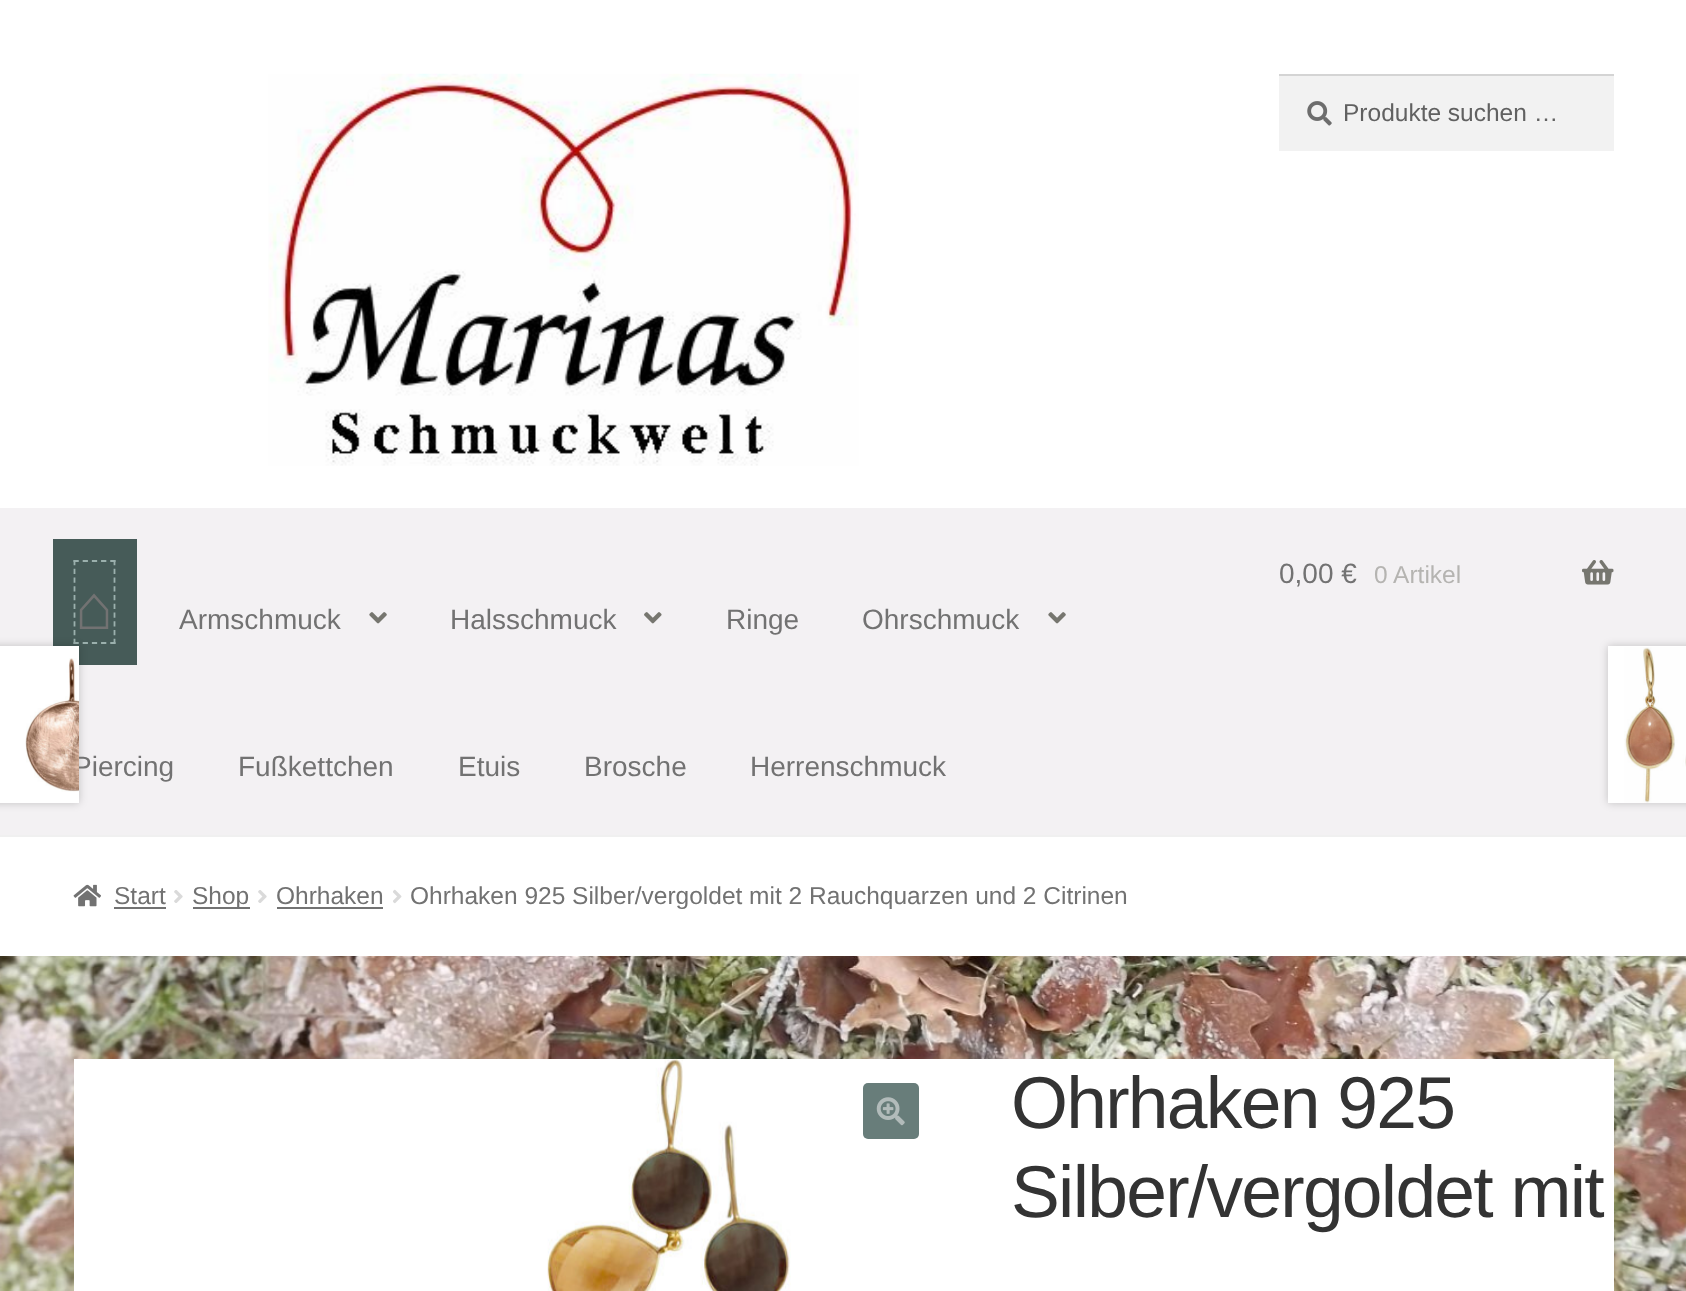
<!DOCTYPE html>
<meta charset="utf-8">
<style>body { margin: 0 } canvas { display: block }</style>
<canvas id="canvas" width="1686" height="1291"></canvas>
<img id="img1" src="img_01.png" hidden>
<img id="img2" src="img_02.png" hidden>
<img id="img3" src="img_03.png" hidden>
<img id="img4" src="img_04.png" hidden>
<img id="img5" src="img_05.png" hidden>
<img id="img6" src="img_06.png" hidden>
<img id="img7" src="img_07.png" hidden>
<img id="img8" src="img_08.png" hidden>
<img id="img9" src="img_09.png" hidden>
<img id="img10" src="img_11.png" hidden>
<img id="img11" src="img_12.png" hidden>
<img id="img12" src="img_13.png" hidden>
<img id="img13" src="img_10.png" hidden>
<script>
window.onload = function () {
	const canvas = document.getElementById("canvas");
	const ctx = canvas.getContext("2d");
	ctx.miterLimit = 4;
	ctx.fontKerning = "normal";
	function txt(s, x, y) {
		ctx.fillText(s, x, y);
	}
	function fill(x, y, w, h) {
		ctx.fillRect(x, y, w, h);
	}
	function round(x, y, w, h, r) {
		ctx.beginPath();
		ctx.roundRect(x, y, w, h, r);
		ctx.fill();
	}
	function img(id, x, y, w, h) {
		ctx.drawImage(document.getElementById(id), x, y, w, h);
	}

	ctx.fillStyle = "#FFFFFF";
	fill(0, 0, 1686, 1291);
	img("img1", 0, 956, 1686, 335);
	ctx.fillStyle = "#F0F0F0";
	fill(0, 835, 1686, 2);
	img("img2", 268, 73, 591, 393);
	ctx.fillStyle = "#F2F2F2";
	fill(1279, 76, 335, 75);
	img("img3", 1307, 101, 25, 25);
	ctx.fillStyle = "#D4D4D4";
	fill(1279, 74, 335, 2);
	ctx.fillStyle = "#F3F1F3";
	fill(0, 508, 1686, 327);
	img("img4", 1582, 560, 32, 25);
	ctx.strokeStyle = "#465B58";
	ctx.lineWidth = 21;
	ctx.strokeRect(63.5, 549.5, 63, 105);
	ctx.fillStyle = "#465B58";
	fill(74, 560, 42, 84);
	ctx.beginPath();
	ctx.moveTo(73.5, 561);
	ctx.lineTo(115.5, 561);
	ctx.strokeStyle = "#9BB0AD";
	ctx.lineWidth = 1.8;
	ctx.setLineDash([5.25, 3.94]);
	ctx.stroke();
	ctx.beginPath();
	ctx.moveTo(114.5, 560);
	ctx.lineTo(114.5, 644);
	ctx.setLineDash([5.25, 3.5]);
	ctx.stroke();
	ctx.beginPath();
	ctx.moveTo(73.5, 643);
	ctx.lineTo(115.5, 643);
	ctx.setLineDash([5.25, 3.94]);
	ctx.stroke();
	ctx.beginPath();
	ctx.moveTo(74.5, 560);
	ctx.lineTo(74.5, 644);
	ctx.setLineDash([5.25, 3.5]);
	ctx.stroke();
	img("img5", 369, 612, 18, 12);
	img("img6", 644, 612, 18, 12);
	img("img5", 1048, 612, 18, 12);
	img("img7", 73, 884, 28, 23);
	ctx.fillStyle = "#727272";
	fill(114, 907, 52, 2);
	img("img8", 174, 890, 9, 13);
	fill(193, 907, 57, 2);
	img("img8", 258, 890, 9, 13);
	fill(277, 907, 106, 2);
	img("img9", 393, 889, 9, 15);
	ctx.fillStyle = "#FFFFFF";
	fill(74, 1059, 1540, 232);
	ctx.fillStyle = "rgba(0, 0, 0, 0.2)";
	ctx.filter = "blur(4.5px)";
	ctx.beginPath();
	ctx.rect(-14, 646, 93, 157);
	ctx.fill();
	ctx.filter = "none";
	ctx.filter = "blur(4.5px)";
	ctx.beginPath();
	ctx.rect(1608, 646, 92, 157);
	ctx.fill();
	ctx.filter = "none";
	ctx.fillStyle = "#FFFFFF";
	fill(1608, 646, 78, 157);
	img("img10", 1624, 647, 62, 156);
	img("img11", 547, 1059, 244, 232);
	ctx.fillStyle = "#687D7A";
	round(863, 1083, 56, 56, 5);
	img("img12", 876, 1097, 29, 29);
	ctx.font = "24.5px Liberation Sans";
	ctx.fillStyle = "#616161";
	txt("Produkte suchen …", 1343, 121);
	ctx.font = "28px Liberation Sans";
	ctx.fillStyle = "#727272";
	txt("0,00 €", 1279, 583);
	ctx.font = "24.5px Liberation Sans";
	ctx.fillStyle = "#B5B4B1";
	txt("0 Artikel", 1374, 583);
	ctx.font = "63px Liberation Sans";
	ctx.fillStyle = "#727272";
	txt("⌂", 75, 629);
	ctx.font = "28px Liberation Sans";
	txt("Armschmuck", 179, 629);
	txt("Halsschmuck", 450, 629);
	txt("Ringe", 726, 629);
	txt("Ohrschmuck", 862, 629);
	txt("Piercing", 73, 776);
	txt("Fußkettchen", 238, 776);
	txt("Etuis", 458, 776);
	txt("Brosche", 584, 776);
	txt("Herrenschmuck", 750, 776);
	ctx.font = "24.5px Liberation Sans";
	txt("Start", 114, 904);
	txt("Shop", 192, 904);
	txt("Ohrhaken", 276, 904);
	txt("Ohrhaken 925 Silber/vergoldet mit 2 Rauchquarzen und 2 Citrinen", 410, 904);
	ctx.fillStyle = "#FFFFFF";
	fill(0, 646, 79, 157);
	img("img13", 25, 658, 54, 134);
	ctx.letterSpacing = "-1.75px";
	ctx.font = "73.25px Liberation Sans";
	ctx.fillStyle = "#333333";
	txt("Ohrhaken 925", 1011, 1128);
	txt("Silber/vergoldet mit", 1011, 1217);
};
</script>
